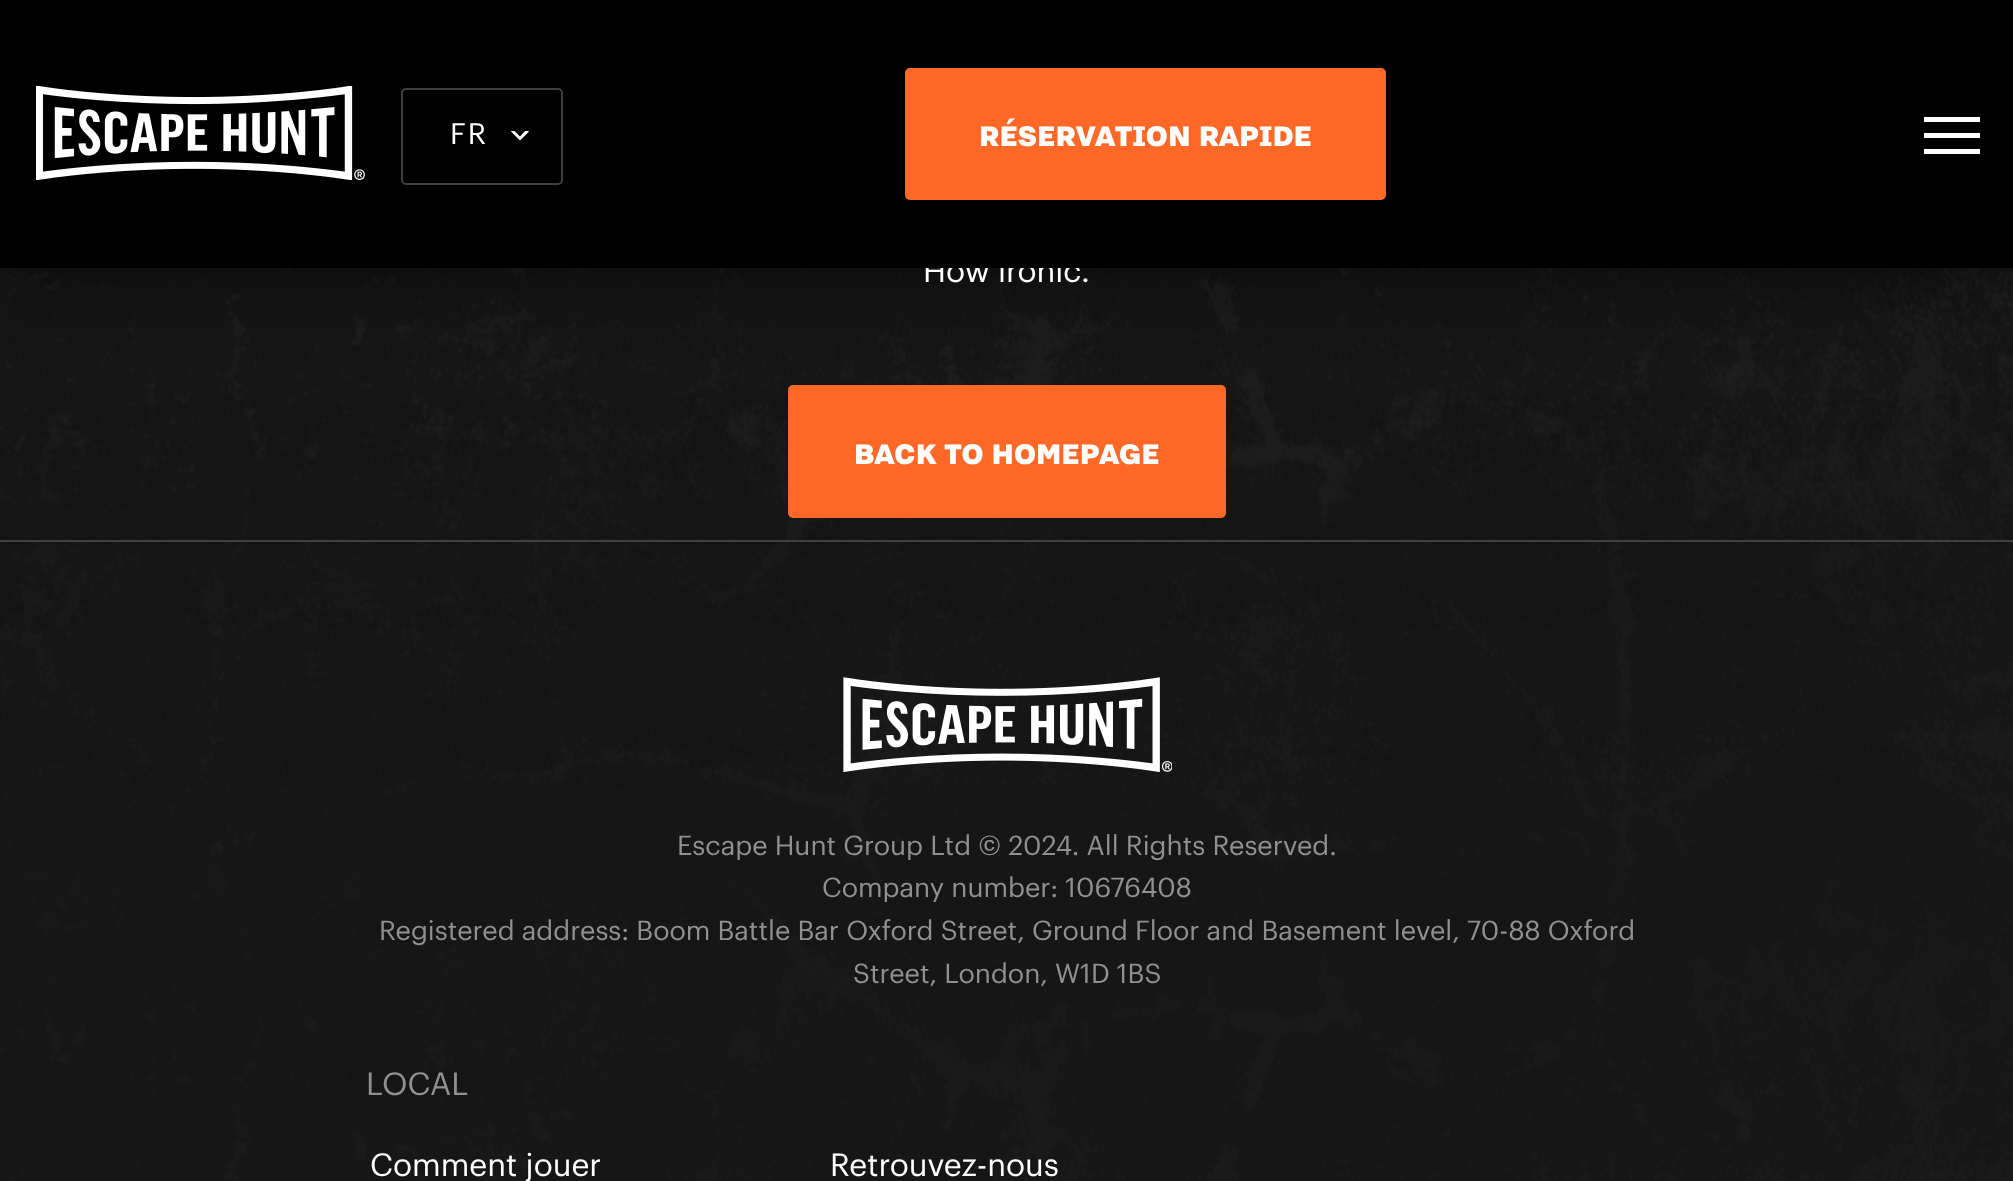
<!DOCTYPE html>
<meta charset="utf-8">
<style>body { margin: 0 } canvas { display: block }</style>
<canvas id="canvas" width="2013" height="1181"></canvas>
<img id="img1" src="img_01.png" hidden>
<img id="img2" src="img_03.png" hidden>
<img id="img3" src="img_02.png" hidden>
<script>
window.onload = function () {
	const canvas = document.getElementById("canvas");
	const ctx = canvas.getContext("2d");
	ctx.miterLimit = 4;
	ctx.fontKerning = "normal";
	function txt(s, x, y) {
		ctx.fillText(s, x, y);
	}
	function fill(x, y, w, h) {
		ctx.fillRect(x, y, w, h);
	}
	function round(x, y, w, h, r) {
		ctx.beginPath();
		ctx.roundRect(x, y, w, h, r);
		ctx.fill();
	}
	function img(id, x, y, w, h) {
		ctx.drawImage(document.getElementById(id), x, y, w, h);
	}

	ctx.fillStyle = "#1C1C1C";
	fill(0, 0, 2013, 1181);
	img("img1", 0, 268, 2013, 913);
	ctx.fillStyle = "#FF6826";
	round(788, 385, 438, 133, 5);
	ctx.fillStyle = "rgba(0, 0, 0, 0.4)";
	ctx.filter = "blur(31.5px)";
	ctx.beginPath();
	ctx.rect(0, 23, 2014, 267);
	ctx.fill();
	ctx.filter = "none";
	ctx.fillStyle = "#3F3F3F";
	fill(0, 540, 2013, 2);
	img("img2", 843, 677, 329, 95);
	ctx.font = "31.5px Graphik";
	ctx.fillStyle = "#FFFFFF";
	txt("How ironic.", 923, 282);
	ctx.fillStyle = "#000000";
	fill(0, 0, 2013, 268);
	img("img3", 36, 86, 329, 94);
	ctx.beginPath();
	ctx.roundRect(402, 89, 160, 95, 4);
	ctx.strokeStyle = "#404040";
	ctx.lineWidth = 2;
	ctx.stroke();
	ctx.save();
	ctx.beginPath();
	ctx.rect(511, 131, 18, 9);
	ctx.clip();
	ctx.fillStyle = "#FFFFFF";
	ctx.beginPath();
	ctx.moveTo(529, 131.5);
	ctx.lineTo(526.5, 129.5);
	ctx.lineTo(520, 136.5);
	ctx.lineTo(513, 129.5);
	ctx.lineTo(511, 131.5);
	ctx.lineTo(520, 140.5);
	ctx.closePath();
	ctx.fill();
	ctx.restore();
	ctx.letterSpacing = "2px";
	ctx.font = "29px Graphik";
	ctx.fillStyle = "#FFFFFF";
	txt("FR", 450, 144);
	ctx.fillStyle = "#FF6826";
	round(905, 68, 481, 132, 5);
	ctx.letterSpacing = "0px";
	ctx.font = "900 36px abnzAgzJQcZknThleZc";
	ctx.fillStyle = "#FFFFFF";
	txt("RÉSERVATION RAPIDE", 979, 146);
	fill(1924, 149, 56, 5);
	fill(1924, 133, 56, 5);
	fill(1924, 117, 56, 5);
	txt("BACK TO HOMEPAGE", 854, 464);
	ctx.font = "27px Graphik";
	ctx.fillStyle = "#909090";
	txt("Escape Hunt Group Ltd © 2024. All Rights Reserved.", 677, 855);
	txt("Company number: 10676408", 822, 897);
	txt("Registered address: Boom Battle Bar Oxford Street, Ground Floor and Basement level, 70-88 Oxford", 379, 940);
	txt("Street, London, W1D 1BS", 853, 983);
	ctx.font = "31.5px Graphik";
	txt("LOCAL", 366, 1095);
	ctx.fillStyle = "#FFFFFF";
	txt("Comment jouer", 370, 1176);
	txt("Retrouvez-nous", 830, 1176);
};
</script>
